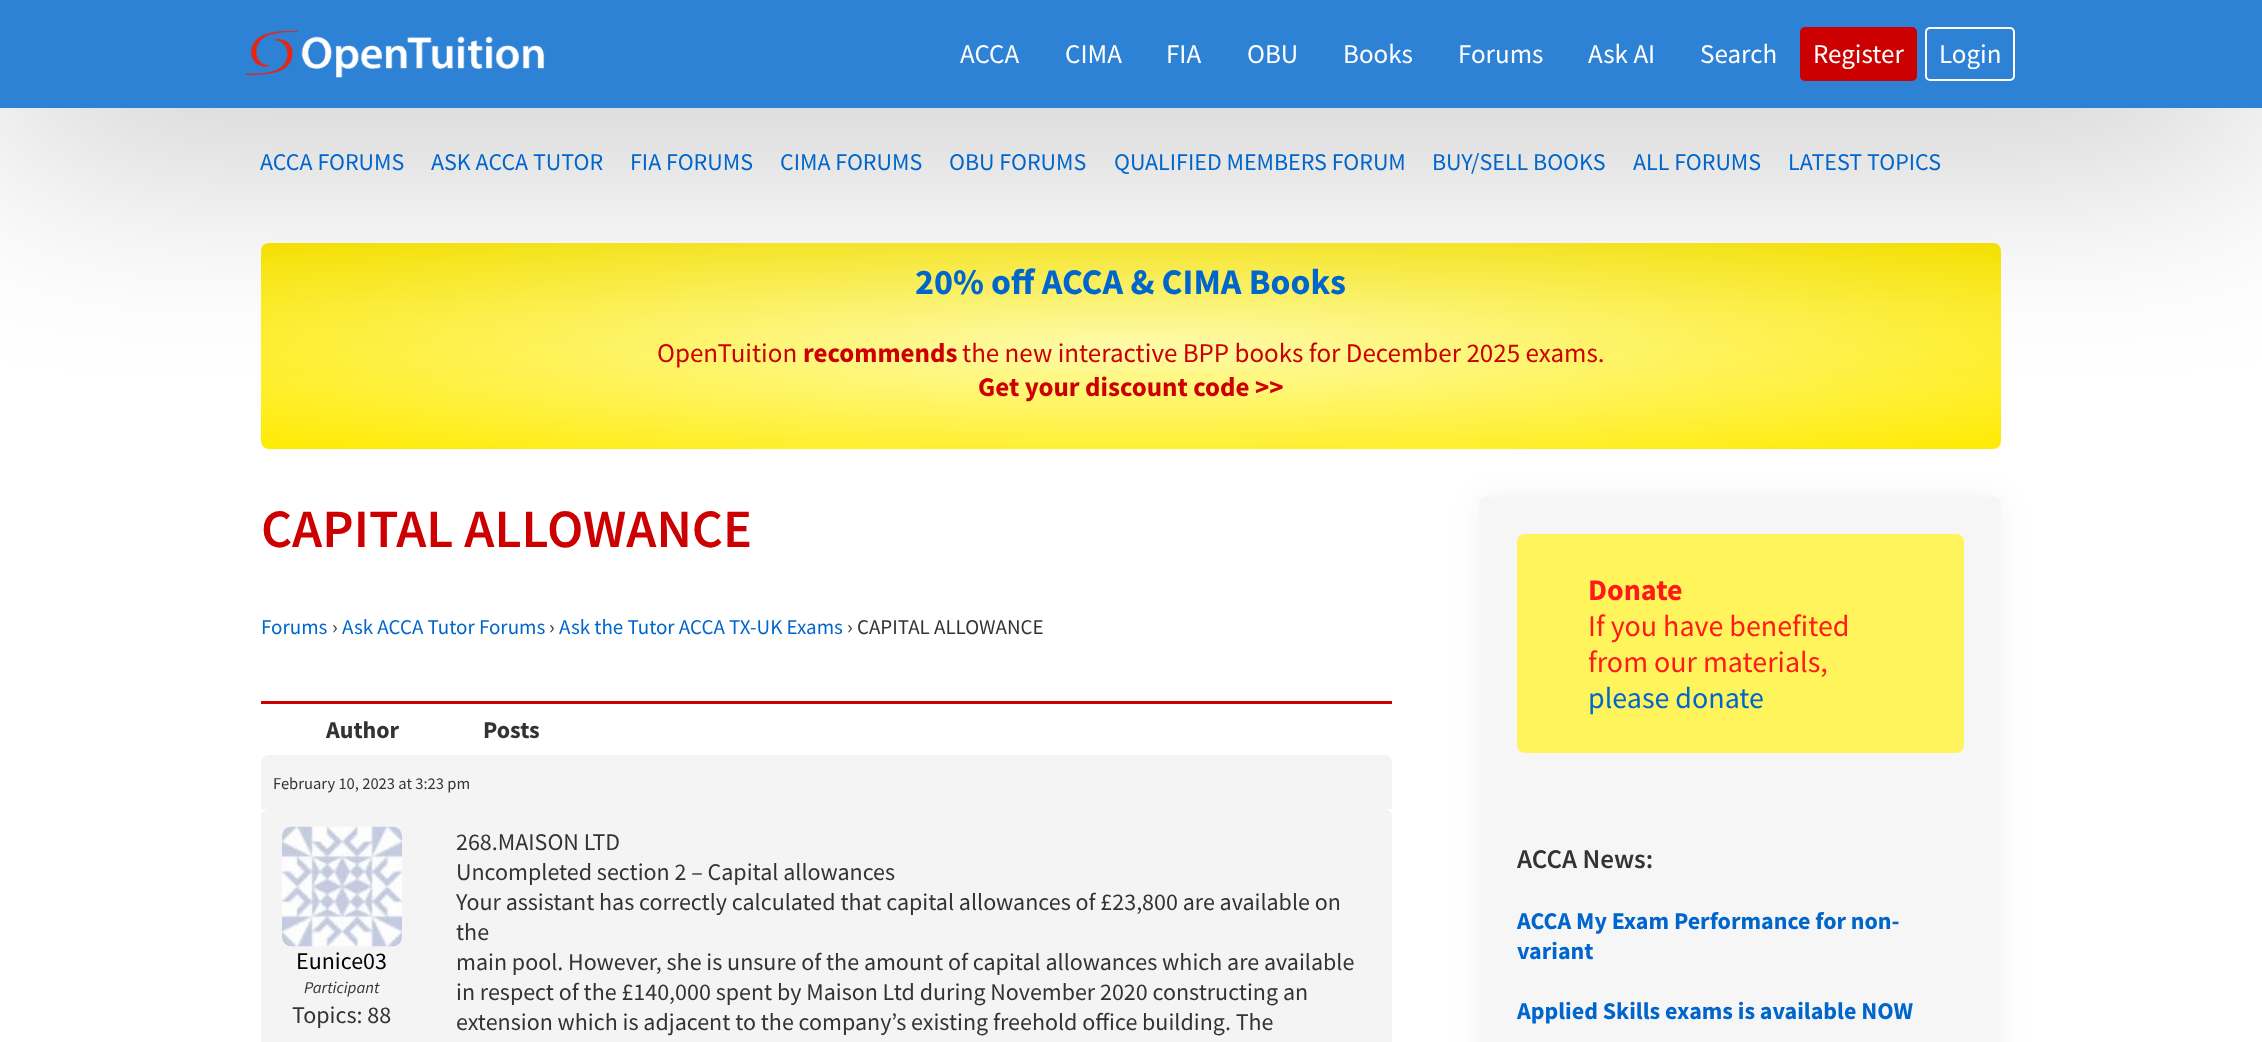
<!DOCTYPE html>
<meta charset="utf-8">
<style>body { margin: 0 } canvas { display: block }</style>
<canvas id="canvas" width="2262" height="1042"></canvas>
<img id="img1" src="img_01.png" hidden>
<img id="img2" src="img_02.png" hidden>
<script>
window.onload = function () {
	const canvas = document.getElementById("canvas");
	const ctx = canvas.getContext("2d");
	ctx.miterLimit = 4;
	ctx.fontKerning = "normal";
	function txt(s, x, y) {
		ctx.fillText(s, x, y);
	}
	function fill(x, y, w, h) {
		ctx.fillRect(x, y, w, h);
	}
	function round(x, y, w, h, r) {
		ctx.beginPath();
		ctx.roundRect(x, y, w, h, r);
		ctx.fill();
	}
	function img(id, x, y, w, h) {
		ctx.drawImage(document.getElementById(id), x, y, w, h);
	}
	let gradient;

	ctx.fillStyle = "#FFFFFF";
	fill(0, 0, 2262, 1042);
	gradient = ctx.createRadialGradient(1131, 2935.03, 0, 1131, 2935.03, 1230);
	gradient.addColorStop(0.01, "#FFFCAA");
	gradient.addColorStop(1, "#FFEA01");
	ctx.fillStyle = gradient;
	ctx.beginPath();
	ctx.roundRect(261, 243, 1740, 206, 8);
	ctx.save();
	ctx.clip();
	ctx.scale(1, 145 / 1230);
	ctx.fillRect(0, 0, 2262, 8840);
	ctx.restore();
	ctx.fillStyle = "rgba(1, 1, 1, 0.4)";
	ctx.filter = "blur(120px)";
	ctx.beginPath();
	ctx.rect(0, 0, 2262, 108);
	ctx.fill();
	ctx.filter = "none";
	ctx.fillStyle = "#2E82D5";
	fill(0, 0, 2262, 108);
	img("img1", 246, 30, 299, 48);
	ctx.fillStyle = "#CC0000";
	round(1800, 27, 117, 54, 5);
	ctx.beginPath();
	ctx.roundRect(1926, 28, 88, 52, 4);
	ctx.strokeStyle = "#FFFFFF";
	ctx.lineWidth = 2;
	ctx.stroke();
	fill(261, 701, 1131, 3);
	ctx.fillStyle = "#F4F4F4";
	ctx.beginPath();
	ctx.roundRect(261, 755, 1131, 54, [8, 8, 0, 0]);
	ctx.fill();
	round(261, 809, 1131, 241, 8);
	img("img2", 282, 826, 120, 121);
	ctx.fillStyle = "rgba(0, 0, 0, 0.05)";
	ctx.filter = "blur(15px)";
	ctx.beginPath();
	ctx.roundRect(1479, 497, 522, 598, 8);
	ctx.fill();
	ctx.filter = "none";
	ctx.fillStyle = "#F6F6F6";
	round(1479, 497, 522, 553, 8);
	ctx.fillStyle = "#FFF45B";
	round(1517, 534, 447, 219, 8);
	ctx.font = "27px Source Sans Pro";
	ctx.fillStyle = "#FFFFFF";
	txt("ACCA", 960, 63);
	txt("CIMA", 1065, 63);
	txt("FIA", 1166, 63);
	txt("OBU", 1247, 63);
	txt("Books", 1343, 63);
	txt("Forums", 1458, 63);
	txt("Ask AI", 1588, 63);
	txt("Search", 1700, 63);
	txt("Register", 1813, 63);
	txt("Login", 1939, 63);
	ctx.font = "24px Source Sans Pro";
	ctx.fillStyle = "#0066CC";
	txt("ACCA FORUMS", 260, 170);
	txt("ASK ACCA TUTOR", 431, 170);
	txt("FIA FORUMS", 630, 170);
	txt("CIMA FORUMS", 780, 170);
	txt("OBU FORUMS", 949, 170);
	txt("QUALIFIED MEMBERS FORUM", 1114, 170);
	txt("BUY/SELL BOOKS", 1432, 170);
	txt("ALL FORUMS", 1633, 170);
	txt("LATEST TOPICS", 1788, 170);
	ctx.font = "bold 36px Source Sans Pro";
	txt("20% off ACCA & CIMA Books", 915, 294);
	ctx.font = "27px Source Sans Pro";
	ctx.fillStyle = "#CC0000";
	txt("OpenTuition", 657, 362);
	ctx.font = "bold 27px Source Sans Pro";
	txt("recommends", 803, 362);
	ctx.font = "27px Source Sans Pro";
	txt("the new interactive BPP books for December 2025 exams.", 962, 362);
	ctx.font = "bold 27px Source Sans Pro";
	txt("Get your discount code >>", 978, 396);
	ctx.font = "600 54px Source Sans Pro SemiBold";
	txt("CAPITAL ALLOWANCE", 261, 547);
	ctx.font = "21px Source Sans Pro";
	ctx.fillStyle = "#0066CC";
	txt("Forums", 261, 634);
	ctx.fillStyle = "#333333";
	txt("›", 332, 634);
	ctx.fillStyle = "#0066CC";
	txt("Ask ACCA Tutor Forums", 342, 634);
	ctx.fillStyle = "#333333";
	txt("›", 549, 634);
	ctx.fillStyle = "#0066CC";
	txt("Ask the Tutor ACCA TX-UK Exams", 559, 634);
	ctx.fillStyle = "#333333";
	txt("› CAPITAL ALLOWANCE", 847, 634);
	ctx.font = "bold 24px Source Sans Pro";
	txt("Author", 326, 738);
	txt("Posts", 483, 738);
	ctx.font = "16.5px Source Sans Pro";
	txt("February 10, 2023 at 3:23 pm", 273, 789);
	ctx.font = "24px Source Sans Pro";
	ctx.fillStyle = "#000000";
	txt("Eunice03", 296, 969);
	ctx.font = "italic 16.5px Source Sans Pro";
	ctx.fillStyle = "#333333";
	txt("Participant", 304, 993);
	ctx.font = "24px Source Sans Pro";
	txt("Topics: 88", 292, 1023);
	txt("268.MAISON LTD", 456, 850);
	txt("Uncompleted section 2 – Capital allowances", 456, 880);
	txt("Your assistant has correctly calculated that capital allowances of £23,800 are available on", 456, 910);
	txt("the", 456, 940);
	txt("main pool. However, she is unsure of the amount of capital allowances which are available", 456, 970);
	txt("in respect of the £140,000 spent by Maison Ltd during November 2020 constructing an", 456, 1000);
	txt("extension which is adjacent to the company’s existing freehold office building. The", 456, 1030);
	ctx.font = "bold 30px Source Sans Pro";
	ctx.fillStyle = "#FF1A1A";
	txt("Donate", 1588, 600);
	ctx.font = "30px Source Sans Pro";
	txt("If you have benefited", 1588, 636);
	txt("from our materials,", 1588, 672);
	ctx.fillStyle = "#0066CC";
	txt("please donate", 1588, 708);
	ctx.font = "600 27px Source Sans Pro SemiBold";
	ctx.fillStyle = "#333333";
	txt("ACCA News:", 1517, 868);
	ctx.font = "bold 24px Source Sans Pro";
	ctx.fillStyle = "#0066CC";
	txt("ACCA My Exam Performance for non-", 1517, 929);
	txt("variant", 1517, 959);
	txt("Applied Skills exams is available NOW", 1517, 1019);
};
</script>
